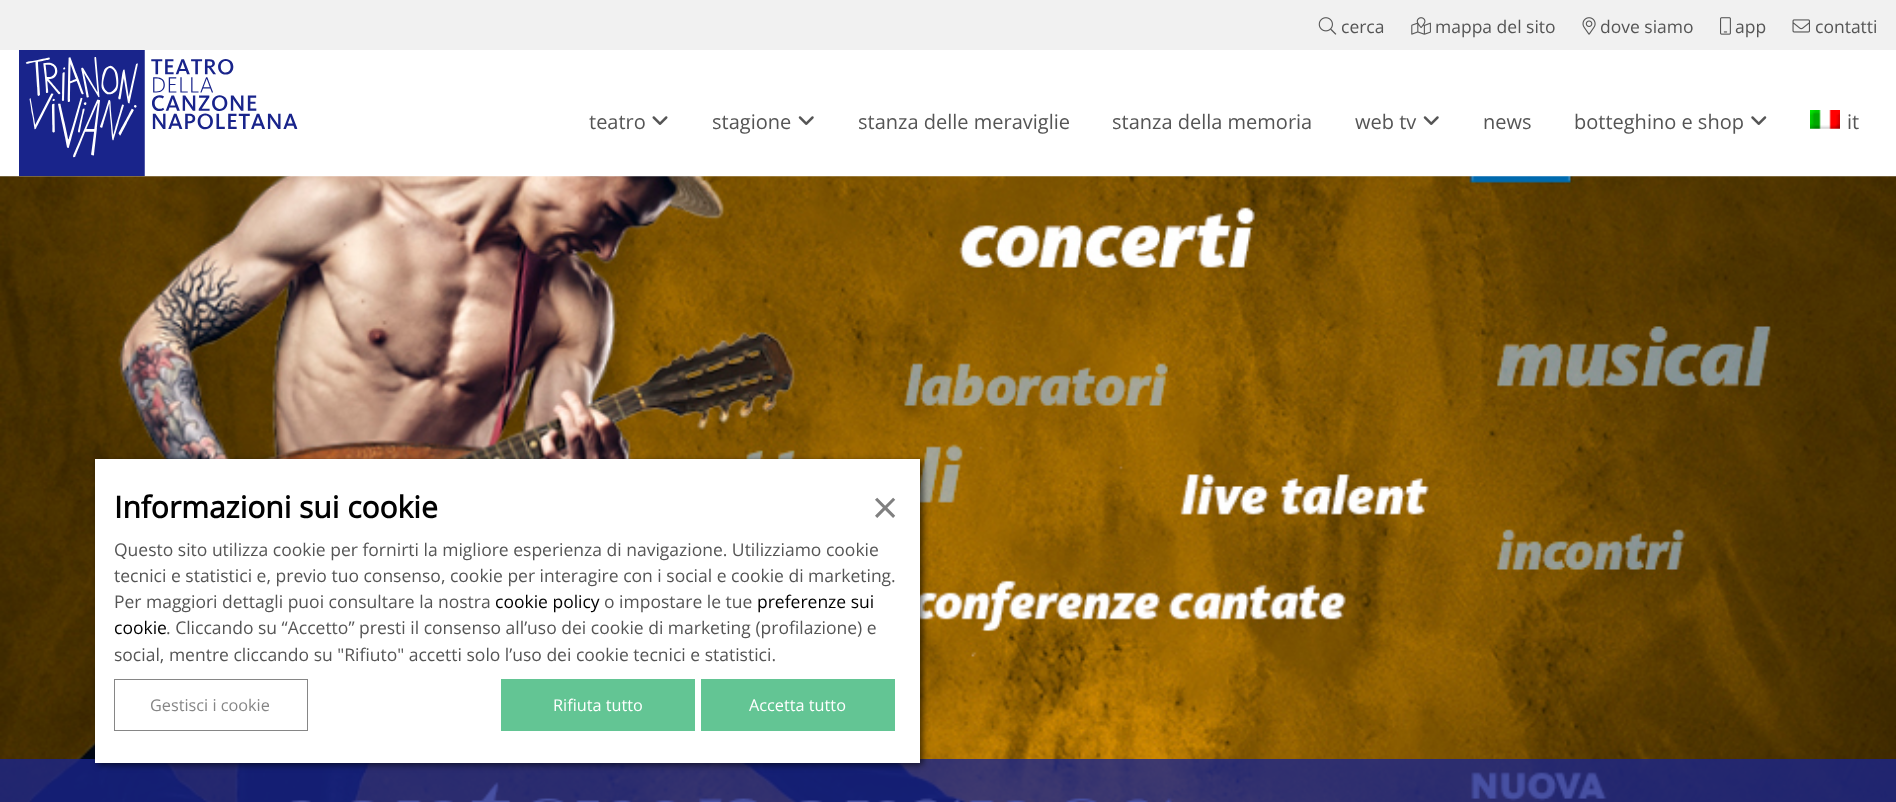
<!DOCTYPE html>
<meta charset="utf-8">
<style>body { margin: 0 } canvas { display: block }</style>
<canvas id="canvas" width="1896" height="802"></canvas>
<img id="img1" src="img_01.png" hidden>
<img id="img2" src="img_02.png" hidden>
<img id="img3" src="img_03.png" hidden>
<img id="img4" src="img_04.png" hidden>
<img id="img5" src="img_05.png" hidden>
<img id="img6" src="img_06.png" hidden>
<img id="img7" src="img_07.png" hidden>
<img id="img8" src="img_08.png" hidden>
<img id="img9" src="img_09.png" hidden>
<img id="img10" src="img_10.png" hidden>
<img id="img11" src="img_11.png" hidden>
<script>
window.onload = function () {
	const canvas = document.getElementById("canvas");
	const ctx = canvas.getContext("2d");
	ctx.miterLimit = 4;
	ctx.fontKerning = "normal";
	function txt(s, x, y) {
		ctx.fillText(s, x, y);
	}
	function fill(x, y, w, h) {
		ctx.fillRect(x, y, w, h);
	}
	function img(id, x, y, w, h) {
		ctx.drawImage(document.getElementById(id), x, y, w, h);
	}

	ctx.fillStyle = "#FFFFFF";
	fill(0, 0, 1896, 802);
	ctx.fillStyle = "#F1F1F1";
	fill(0, 0, 1896, 50);
	img("img1", 1318, 17, 19, 18);
	img("img2", 1411, 17, 20, 18);
	img("img3", 1582, 17, 14, 18);
	img("img4", 1720, 17, 11, 18);
	img("img5", 1792, 19, 18, 14);
	img("img6", 19, 50, 279, 126);
	img("img7", 652, 116, 16, 9);
	img("img8", 798, 116, 16, 9);
	img("img8", 1423, 116, 16, 9);
	img("img9", 1751, 116, 16, 9);
	img("img10", 1810, 110, 30, 19);
	img("img11", 0, 176, 1896, 626);
	ctx.fillStyle = "rgba(25, 36, 139, 0.8)";
	fill(0, 759, 1896, 43);
	ctx.fillStyle = "rgba(0, 0, 0, 0.6)";
	ctx.filter = "blur(3px)";
	ctx.beginPath();
	ctx.rect(98, 461, 825, 304);
	ctx.fill();
	ctx.filter = "none";
	ctx.fillStyle = "#FFFFFF";
	fill(95, 459, 825, 304);
	ctx.strokeStyle = "#868686";
	ctx.strokeRect(114.5, 679.5, 193, 51);
	ctx.fillStyle = "#63C594";
	fill(501, 679, 194, 52);
	fill(701, 679, 194, 52);
	ctx.font = "17.5px Open Sans";
	ctx.fillStyle = "#555555";
	txt("cerca", 1341, 33);
	txt("mappa del sito", 1435, 33);
	txt("dove siamo", 1600, 33);
	txt("app", 1735, 33);
	txt("contatti", 1815, 33);
	ctx.font = "20px Open Sans";
	txt("teatro", 589, 129);
	txt("stagione", 712, 129);
	txt("stanza delle meraviglie", 858, 129);
	txt("stanza della memoria", 1112, 129);
	txt("web tv", 1355, 129);
	txt("news", 1483, 129);
	txt("botteghino e shop", 1574, 129);
	txt("it", 1847, 129);
	ctx.font = "bold 30px Open Sans";
	ctx.fillStyle = "#010101";
	txt("Informazioni sui cookie", 114, 518);
	ctx.font = "46px Open Sans";
	ctx.fillStyle = "#808080";
	txt("×", 872, 524);
	ctx.font = "17.5px Open Sans";
	ctx.fillStyle = "#555555";
	txt("Questo sito utilizza cookie per fornirti la migliore esperienza di navigazione. Utilizziamo cookie", 114, 556);
	txt("tecnici e statistici e, previo tuo consenso, cookie per interagire con i social e cookie di marketing.", 114, 582);
	txt("Per maggiori dettagli puoi consultare la nostra", 114, 608);
	ctx.fillStyle = "#010101";
	txt("cookie policy", 495, 608);
	ctx.fillStyle = "#555555";
	txt("o impostare le tue", 604, 608);
	ctx.fillStyle = "#010101";
	txt("preferenze sui", 757, 608);
	txt("cookie", 114, 634);
	ctx.fillStyle = "#555555";
	txt(". Cliccando su “Accetto” presti il consenso all’uso dei cookie di marketing (profilazione) e", 166, 634);
	txt("social, mentre cliccando su \"Rifiuto\" accetti solo l’uso dei cookie tecnici e statistici.", 114, 661);
	ctx.font = "16.25px Open Sans";
	ctx.fillStyle = "#868686";
	txt("Gestisci i cookie", 150, 711);
	ctx.fillStyle = "#FFFFFF";
	txt("Rifiuta tutto", 553, 711);
	txt("Accetta tutto", 749, 711);
};
</script>
